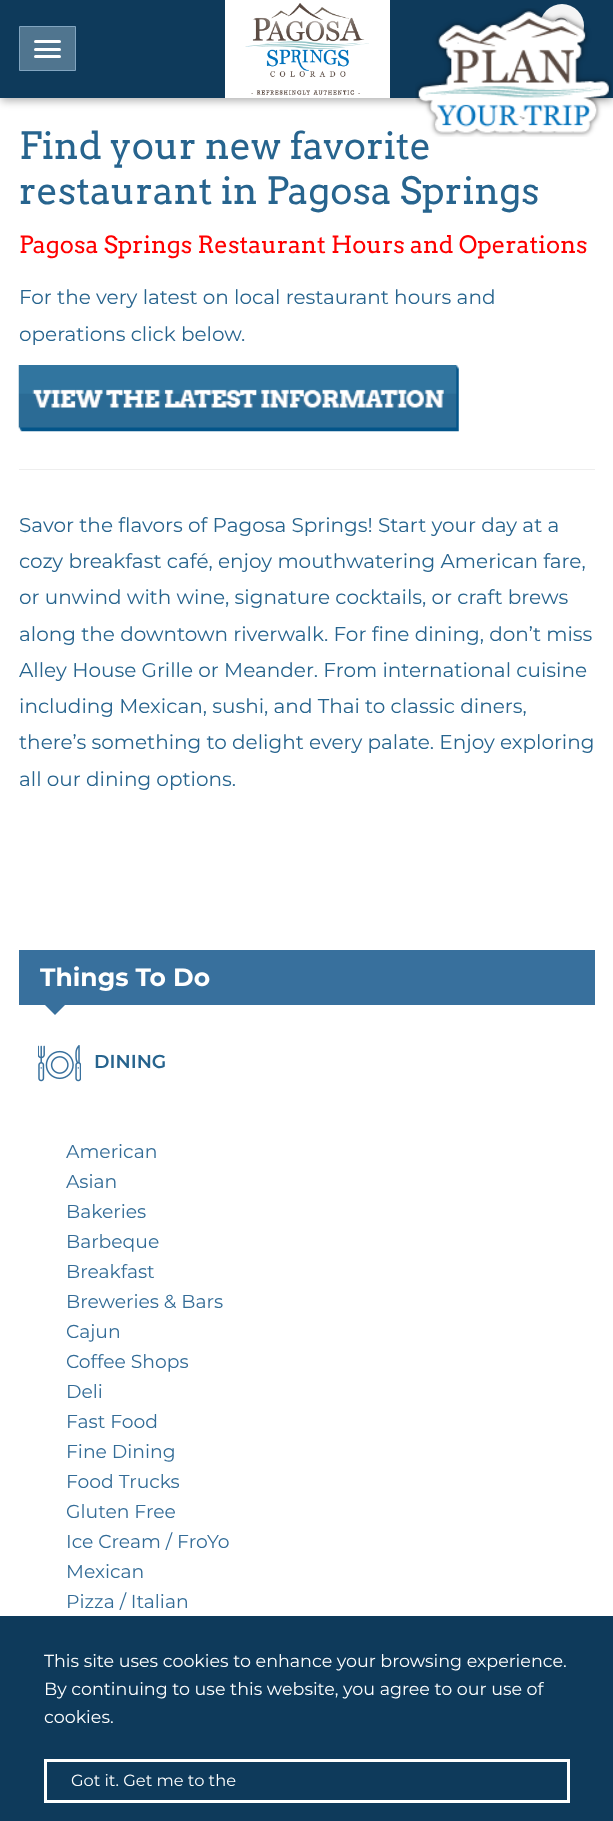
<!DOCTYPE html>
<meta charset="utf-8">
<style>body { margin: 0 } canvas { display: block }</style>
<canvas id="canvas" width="613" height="1821"></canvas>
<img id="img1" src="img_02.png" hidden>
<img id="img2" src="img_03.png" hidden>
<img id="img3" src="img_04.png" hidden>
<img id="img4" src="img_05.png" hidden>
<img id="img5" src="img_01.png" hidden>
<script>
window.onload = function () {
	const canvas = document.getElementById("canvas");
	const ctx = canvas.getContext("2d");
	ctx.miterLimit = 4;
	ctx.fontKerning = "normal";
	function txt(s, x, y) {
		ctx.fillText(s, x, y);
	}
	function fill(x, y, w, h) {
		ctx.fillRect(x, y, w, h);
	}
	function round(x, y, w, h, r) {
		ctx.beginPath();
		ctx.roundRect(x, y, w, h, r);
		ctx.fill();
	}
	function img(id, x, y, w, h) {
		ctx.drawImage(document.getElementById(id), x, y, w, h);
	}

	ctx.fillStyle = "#FFFFFF";
	fill(0, 0, 613, 1821);
	ctx.fillStyle = "rgba(0, 0, 0, 0.3)";
	ctx.filter = "blur(4.5px)";
	ctx.beginPath();
	ctx.rect(1, 6, 612, 95);
	ctx.fill();
	ctx.filter = "none";
	ctx.fillStyle = "#0E3A5B";
	fill(0, 0, 613, 98);
	ctx.fillStyle = "#50758F";
	ctx.beginPath();
	ctx.rect(19.5, 26.5, 56, 44);
	ctx.fill();
	ctx.strokeStyle = "#82A5C0";
	ctx.stroke();
	ctx.fillStyle = "#FFFFFF";
	round(34, 40, 27, 3, 1.5);
	round(34, 48, 27, 3, 1.5);
	round(34, 55, 27, 3, 1.5);
	fill(225, 0, 165, 98);
	img("img1", 245, 3, 124, 92);
	ctx.fillStyle = "#F4F4F4";
	ctx.beginPath();
	ctx.arc(562, 26, 22, 0, Math.PI * 2);
	ctx.fill();
	img("img2", 554, 17, 15, 7);
	img("img3", 18, 365, 441, 67);
	ctx.fillStyle = "#EEEEEE";
	fill(19, 469, 576, 1);
	ctx.fillStyle = "#38709D";
	fill(19, 950, 576, 55);
	ctx.beginPath();
	ctx.moveTo(45, 1005);
	ctx.lineTo(65, 1005);
	ctx.lineTo(55, 1015);
	ctx.closePath();
	ctx.fill();
	img("img4", 38, 1045, 43, 37);
	ctx.fillStyle = "#0E3A5B";
	fill(0, 1616, 613, 205);
	ctx.strokeStyle = "#FFFFFF";
	ctx.lineWidth = 3;
	ctx.strokeRect(45.5, 1760.5, 523, 41);
	ctx.font = "37.5px Arvo";
	ctx.fillStyle = "#27648E";
	txt("Find your new favorite", 19, 159);
	img("img5", 415, 8, 197, 129);
	txt("restaurant in Pagosa Springs", 19, 204);
	ctx.font = "23.75px Arvo";
	ctx.fillStyle = "#FF0000";
	txt("Pagosa Springs Restaurant Hours and Operations", 19, 253);
	ctx.font = "20px Montserrat";
	ctx.fillStyle = "#27648E";
	txt("For the very latest on local restaurant hours and", 19, 304);
	txt("operations click below.", 19, 341);
	txt("Savor the flavors of Pagosa Springs! Start your day at a", 19, 532);
	txt("cozy breakfast café, enjoy mouthwatering American fare,", 19, 568);
	txt("or unwind with wine, signature cocktails, or craft brews", 19, 604);
	txt("along the downtown riverwalk. For fine dining, don’t miss", 19, 641);
	txt("Alley House Grille or Meander. From international cuisine", 19, 677);
	txt("including Mexican, sushi, and Thai to classic diners,", 19, 713);
	txt("there’s something to delight every palate. Enjoy exploring", 19, 749);
	txt("all our dining options.", 19, 786);
	ctx.font = "bold 25px Montserrat";
	ctx.fillStyle = "#FFFFFF";
	txt("Things To Do", 40, 986);
	ctx.font = "600 18.75px Montserrat";
	ctx.fillStyle = "#27648E";
	txt("DINING", 94, 1068);
	ctx.font = "18.75px Montserrat";
	ctx.fillStyle = "#336C97";
	txt("American", 66, 1158);
	txt("Asian", 66, 1188);
	txt("Bakeries", 66, 1218);
	txt("Barbeque", 66, 1248);
	txt("Breakfast", 66, 1278);
	txt("Breweries & Bars", 66, 1308);
	txt("Cajun", 66, 1338);
	txt("Coffee Shops", 66, 1368);
	txt("Deli", 66, 1398);
	txt("Fast Food", 66, 1428);
	txt("Fine Dining", 66, 1458);
	txt("Food Trucks", 66, 1488);
	txt("Gluten Free", 66, 1518);
	txt("Ice Cream / FroYo", 66, 1548);
	txt("Mexican", 66, 1578);
	txt("Pizza / Italian", 66, 1608);
	ctx.font = "17.5px Montserrat";
	ctx.fillStyle = "#FFFFFF";
	txt("This site uses cookies to enhance your browsing experience.", 44, 1667);
	txt("By continuing to use this website, you agree to our use of", 44, 1695);
	txt("cookies.", 44, 1723);
	ctx.font = "16.25px Montserrat";
	txt("Got it. Get me to the", 71, 1786);
};
</script>
